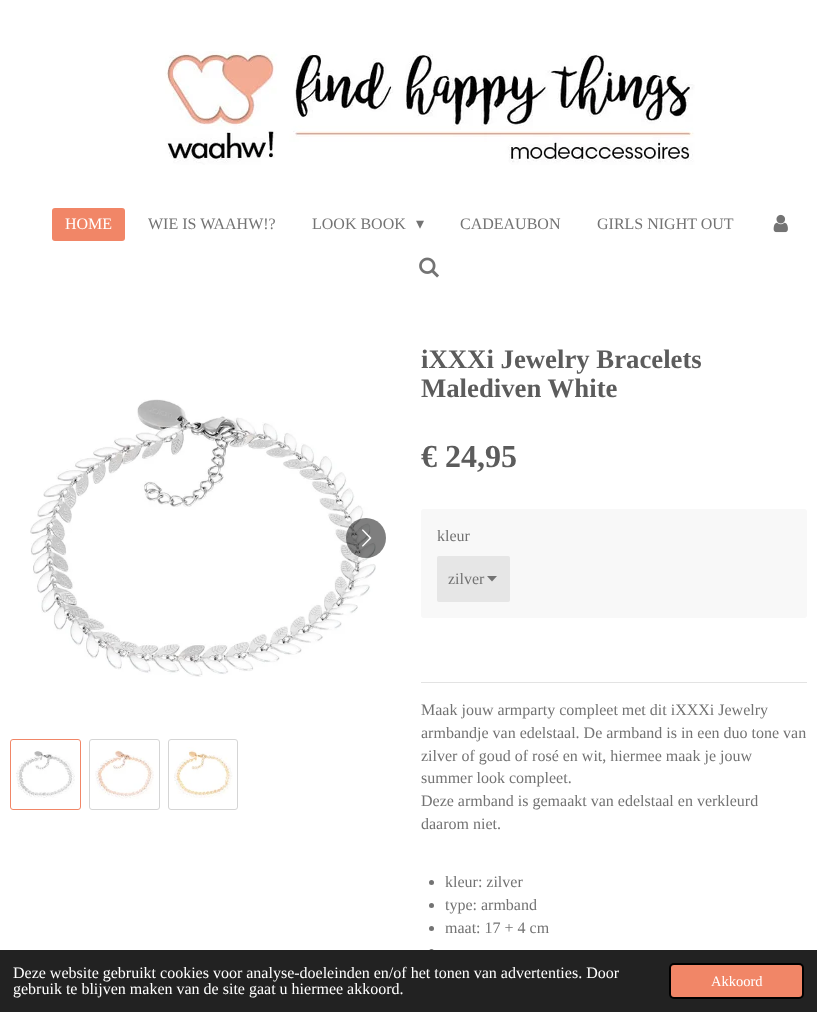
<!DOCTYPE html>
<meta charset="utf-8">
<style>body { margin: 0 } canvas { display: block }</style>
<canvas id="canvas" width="817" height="1012"></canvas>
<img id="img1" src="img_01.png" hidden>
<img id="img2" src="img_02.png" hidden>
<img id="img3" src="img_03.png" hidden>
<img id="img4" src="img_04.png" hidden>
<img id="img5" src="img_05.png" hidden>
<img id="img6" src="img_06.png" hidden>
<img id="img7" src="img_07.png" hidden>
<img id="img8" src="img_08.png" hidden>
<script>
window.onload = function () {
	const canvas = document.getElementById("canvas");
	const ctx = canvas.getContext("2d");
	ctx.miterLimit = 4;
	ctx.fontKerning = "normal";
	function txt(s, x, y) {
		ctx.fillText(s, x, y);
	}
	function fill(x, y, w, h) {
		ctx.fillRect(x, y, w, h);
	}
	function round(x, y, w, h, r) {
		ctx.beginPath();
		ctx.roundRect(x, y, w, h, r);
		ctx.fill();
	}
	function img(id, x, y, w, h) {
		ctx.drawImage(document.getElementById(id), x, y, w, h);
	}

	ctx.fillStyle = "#FFFFFF";
	fill(0, 0, 817, 1012);
	img("img1", 165, 51, 530, 114);
	ctx.fillStyle = "#F18667";
	round(52, 208, 73, 33, 3);
	img("img2", 773, 214, 15, 19);
	img("img3", 419, 257, 20, 21);
	img("img4", 30, 399, 346, 278);
	ctx.fillStyle = "rgba(0, 0, 0, 0.5)";
	ctx.beginPath();
	ctx.arc(366, 538, 20, 0, Math.PI * 2);
	ctx.fill();
	img("img5", 362, 529, 10, 18);
	ctx.beginPath();
	ctx.roundRect(10.5, 739.5, 70, 70, 2.5);
	ctx.strokeStyle = "#F18667";
	ctx.stroke();
	img("img6", 16, 751, 59, 47);
	ctx.beginPath();
	ctx.roundRect(89.5, 739.5, 70, 70, 2.5);
	ctx.strokeStyle = "#D5D5D5";
	ctx.stroke();
	img("img7", 95, 750, 59, 49);
	ctx.beginPath();
	ctx.roundRect(168.5, 739.5, 69, 70, 2.5);
	ctx.stroke();
	img("img8", 174, 747, 59, 51);
	ctx.fillStyle = "#F8F8F8";
	round(421, 509, 386, 109, 3);
	ctx.fillStyle = "#E6E6E6";
	round(437, 556, 73, 46, 2);
	ctx.fillStyle = "#737373";
	ctx.beginPath();
	ctx.moveTo(492, 581.5);
	ctx.lineTo(487, 576);
	ctx.lineTo(497, 576);
	ctx.closePath();
	ctx.fill();
	ctx.fillStyle = "#E3E3E3";
	fill(421, 682, 386, 1);
	ctx.fillStyle = "#737373";
	ctx.beginPath();
	ctx.arc(431.5, 882.5, 2.5, 0, Math.PI * 2);
	ctx.fill();
	ctx.beginPath();
	ctx.arc(431.5, 905.5, 2.5, 0, Math.PI * 2);
	ctx.fill();
	ctx.beginPath();
	ctx.arc(431.5, 928.5, 2.5, 0, Math.PI * 2);
	ctx.fill();
	ctx.beginPath();
	ctx.arc(431.5, 951.5, 2.5, 0, Math.PI * 2);
	ctx.fill();
	ctx.fillStyle = "#222222";
	fill(0, 950, 817, 62);
	ctx.fillStyle = "#F18667";
	ctx.beginPath();
	ctx.roundRect(670, 964, 133, 34, 4);
	ctx.fill();
	ctx.strokeStyle = "#000000";
	ctx.lineWidth = 2;
	ctx.stroke();
	ctx.font = "16px Liberation Serif";
	ctx.fillStyle = "#FFFFFF";
	txt("HOME", 65, 229);
	ctx.fillStyle = "#737373";
	txt("WIE IS WAAHW!?", 148, 229);
	txt("LOOK BOOK", 312, 229);
	ctx.font = "16px DejaVu Sans";
	txt("▾", 416, 229);
	ctx.font = "16px Liberation Serif";
	txt("CADEAUBON", 460, 229);
	txt("GIRLS NIGHT OUT", 597, 229);
	ctx.font = "bold 26.75px Liberation Serif";
	ctx.fillStyle = "#5C5C5C";
	txt("iXXXi Jewelry Bracelets", 421, 368);
	txt("Malediven White", 421, 397);
	ctx.font = "bold 32px Liberation Serif";
	txt("€ 24,95", 421, 467);
	ctx.font = "16px Liberation Serif";
	ctx.fillStyle = "#737373";
	txt("kleur", 437, 541);
	txt("zilver", 448, 584);
	txt("Maak jouw armparty compleet met dit iXXXi Jewelry", 421, 715);
	txt("armbandje van edelstaal. De armband is in een duo tone van", 421, 738);
	txt("zilver of goud of rosé en wit, hiermee maak je jouw", 421, 761);
	txt("summer look compleet.", 421, 783);
	txt("Deze armband is gemaakt van edelstaal en verkleurd", 421, 806);
	txt("daarom niet.", 421, 829);
	txt("kleur: zilver", 445, 887);
	txt("type: armband", 445, 910);
	txt("maat: 17 + 4 cm", 445, 933);
	ctx.fillStyle = "#FFFFFF";
	txt("Deze website gebruikt cookies voor analyse-doeleinden en/of het tonen van advertenties. Door", 13, 978);
	txt("gebruik te blijven maken van de site gaat u hiermee akkoord.", 13, 994);
	ctx.font = "14.5px Liberation Serif";
	txt("Akkoord", 711, 986);
};
</script>
